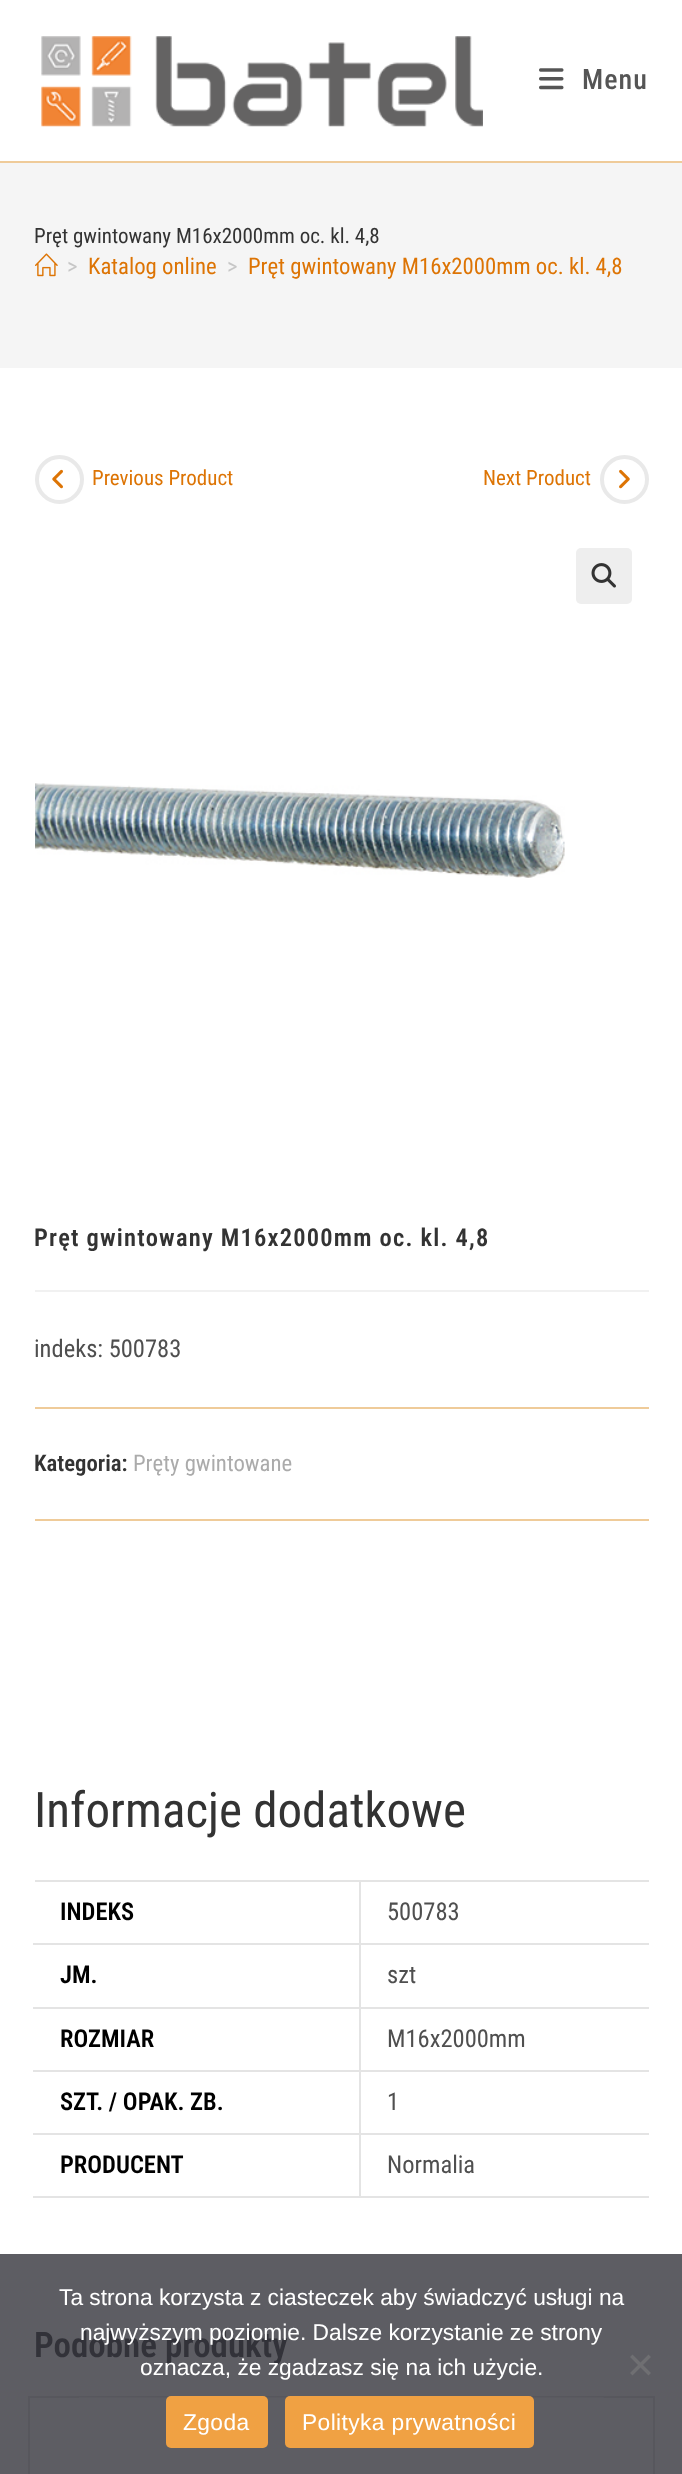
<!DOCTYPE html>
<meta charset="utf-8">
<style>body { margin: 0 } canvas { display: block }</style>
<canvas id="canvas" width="682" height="2474"></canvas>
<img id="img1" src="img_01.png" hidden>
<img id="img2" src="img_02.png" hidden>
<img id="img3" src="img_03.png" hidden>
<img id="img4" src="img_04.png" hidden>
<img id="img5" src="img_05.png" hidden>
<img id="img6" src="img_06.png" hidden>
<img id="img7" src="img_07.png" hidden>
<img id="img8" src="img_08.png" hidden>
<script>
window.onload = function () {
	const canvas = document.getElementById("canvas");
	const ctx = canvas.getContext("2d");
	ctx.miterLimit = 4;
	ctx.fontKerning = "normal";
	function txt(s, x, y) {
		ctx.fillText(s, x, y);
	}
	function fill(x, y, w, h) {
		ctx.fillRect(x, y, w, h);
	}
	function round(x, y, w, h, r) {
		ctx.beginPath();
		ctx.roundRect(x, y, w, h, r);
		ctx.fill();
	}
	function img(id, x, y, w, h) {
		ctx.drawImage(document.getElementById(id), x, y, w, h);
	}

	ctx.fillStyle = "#FFFFFF";
	fill(0, 0, 682, 2474);
	ctx.fillStyle = "#5D5D63";
	fill(0, 2254, 682, 220);
	ctx.fillStyle = "#EFCB99";
	fill(0, 161, 682, 2);
	img("img1", 41, 36, 442, 91);
	img("img2", 539, 68, 25, 22);
	ctx.fillStyle = "#F5F5F5";
	fill(0, 163, 682, 205);
	img("img3", 35, 253, 23, 24);
	ctx.beginPath();
	ctx.arc(59.5, 479.5, 22.5, 0, Math.PI * 2);
	ctx.strokeStyle = "#E9E9E9";
	ctx.lineWidth = 4;
	ctx.stroke();
	img("img4", 52, 469, 11, 20);
	ctx.beginPath();
	ctx.arc(624.5, 479.5, 22.5, 0, Math.PI * 2);
	ctx.stroke();
	img("img5", 619, 469, 11, 20);
	ctx.fillStyle = "#EEEEEE";
	round(576, 548, 56, 56, 5);
	img("img6", 591, 563, 25, 25);
	img("img7", 35, 783, 530, 95);
	ctx.fillStyle = "#F1F1F1";
	fill(35, 1290, 614, 2);
	ctx.fillStyle = "#EFCB99";
	fill(35, 1407, 614, 2);
	fill(35, 1519, 614, 2);
	ctx.fillStyle = "#E4E4E4";
	fill(35, 1880, 614, 2);
	fill(359, 2196, 290, 2);
	fill(359, 2133, 2, 65);
	fill(359, 2133, 290, 2);
	fill(359, 2070, 2, 65);
	fill(359, 2070, 290, 2);
	fill(359, 2007, 2, 65);
	fill(359, 2007, 290, 2);
	fill(359, 1943, 2, 66);
	fill(359, 1943, 290, 2);
	fill(359, 1880, 2, 64);
	fill(33, 1943, 328, 2);
	fill(33, 2007, 328, 2);
	fill(33, 2070, 328, 2);
	fill(33, 2133, 328, 2);
	fill(33, 2196, 328, 2);
	ctx.strokeStyle = "#57575D";
	ctx.lineWidth = 2;
	ctx.strokeRect(29, 2397, 625, 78);
	img("img8", 79, 2397, 525, 1);
	ctx.fillStyle = "#6F6F72";
	ctx.beginPath();
	ctx.moveTo(648.5, 2354.5);
	ctx.lineTo(651, 2357);
	ctx.lineTo(632.5, 2375.5);
	ctx.lineTo(630, 2373);
	ctx.closePath();
	ctx.fill();
	ctx.beginPath();
	ctx.moveTo(630, 2357);
	ctx.lineTo(632.5, 2354.5);
	ctx.lineTo(651, 2373);
	ctx.lineTo(648.5, 2375.5);
	ctx.closePath();
	ctx.fill();
	ctx.fillStyle = "#F0A143";
	round(166, 2396, 102, 52, 5);
	round(285, 2396, 249, 52, 5);
	ctx.letterSpacing = "1px";
	ctx.font = "500 28px Roboto Condensed";
	ctx.fillStyle = "#555555";
	txt("Menu", 582, 89);
	ctx.letterSpacing = "0px";
	ctx.font = "21px Roboto Condensed";
	ctx.fillStyle = "#333333";
	txt("Pręt gwintowany M16x2000mm oc. kl. 4,8", 34, 243);
	ctx.font = "22.75px Roboto Condensed";
	ctx.fillStyle = "#C6C6C6";
	txt(">", 67, 274);
	ctx.fillStyle = "#DD7404";
	txt("Katalog online", 88, 274);
	ctx.fillStyle = "#C6C6C6";
	txt(">", 227, 274);
	ctx.fillStyle = "#DD7404";
	txt("Pręt gwintowany M16x2000mm oc. kl. 4,8", 248, 274);
	ctx.font = "21px Roboto Condensed";
	txt("Previous Product", 92, 485);
	txt("Next Product", 483, 485);
	ctx.letterSpacing = "1.2px";
	ctx.font = "600 24.5px Roboto Condensed";
	ctx.fillStyle = "#333333";
	txt("Pręt gwintowany M16x2000mm oc. kl. 4,8", 34, 1246);
	ctx.letterSpacing = "0px";
	ctx.font = "24.5px Roboto Condensed";
	ctx.fillStyle = "#4F4F4F";
	txt("indeks: 500783", 34, 1357);
	ctx.font = "600 22.75px Roboto Condensed";
	ctx.fillStyle = "#333333";
	txt("Kategoria:", 34, 1471);
	ctx.font = "22.75px Roboto Condensed";
	ctx.fillStyle = "#ABABAB";
	txt("Pręty gwintowane", 133, 1471);
	ctx.font = "49px Roboto Condensed";
	ctx.fillStyle = "#333333";
	txt("Informacje dodatkowe", 34, 1827);
	ctx.font = "600 24.5px Roboto Condensed";
	ctx.fillStyle = "#000000";
	txt("INDEKS", 60, 1920);
	ctx.font = "24.5px Roboto Condensed";
	ctx.fillStyle = "#4F4F4F";
	txt("500783", 387, 1920);
	ctx.font = "600 24.5px Roboto Condensed";
	ctx.fillStyle = "#000000";
	txt("JM.", 60, 1983);
	ctx.font = "24.5px Roboto Condensed";
	ctx.fillStyle = "#4F4F4F";
	txt("szt", 387, 1983);
	ctx.font = "600 24.5px Roboto Condensed";
	ctx.fillStyle = "#000000";
	txt("ROZMIAR", 60, 2047);
	ctx.font = "24.5px Roboto Condensed";
	ctx.fillStyle = "#4F4F4F";
	txt("M16x2000mm", 387, 2047);
	ctx.font = "600 24.5px Roboto Condensed";
	ctx.fillStyle = "#000000";
	txt("SZT. / OPAK. ZB.", 60, 2110);
	ctx.font = "24.5px Roboto Condensed";
	ctx.fillStyle = "#4F4F4F";
	txt("1", 387, 2110);
	ctx.font = "600 24.5px Roboto Condensed";
	ctx.fillStyle = "#000000";
	txt("PRODUCENT", 60, 2173);
	ctx.font = "24.5px Roboto Condensed";
	ctx.fillStyle = "#4F4F4F";
	txt("Normalia", 387, 2173);
	ctx.font = "600 35px Roboto Condensed";
	ctx.fillStyle = "#323239";
	txt("Podobne produkty", 34, 2357);
	ctx.font = "22.75px Liberation Sans";
	ctx.fillStyle = "#FFFFFF";
	txt("Ta strona korzysta z ciasteczek aby świadczyć usługi na", 59, 2305);
	txt("najwyższym poziomie. Dalsze korzystanie ze strony", 80, 2340);
	txt("oznacza, że zgadzasz się na ich użycie.", 140, 2375);
	ctx.letterSpacing = "0.4px";
	txt("Zgoda", 183, 2430);
	txt("Polityka prywatności", 302, 2430);
};
</script>
